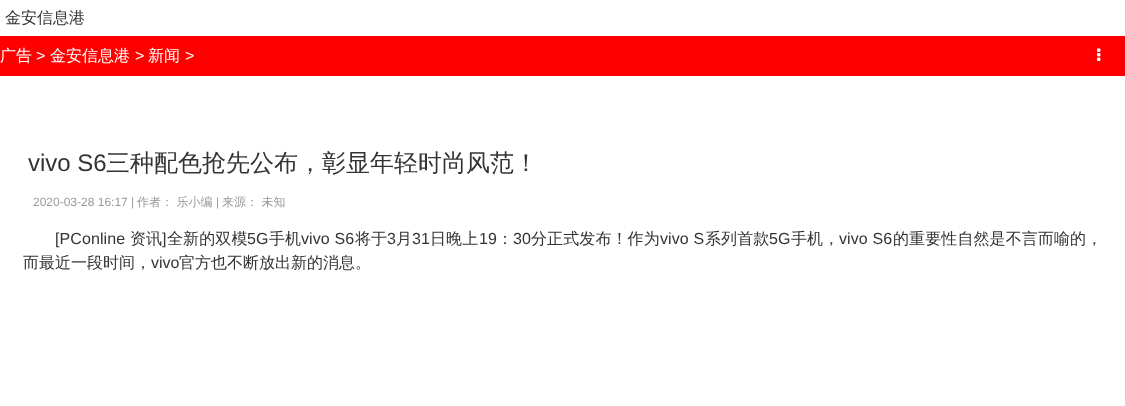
<!DOCTYPE html>
<meta charset="utf-8">
<style>body { margin: 0 } canvas { display: block }</style>
<canvas id="canvas" width="1125" height="406"></canvas>
<img id="img1" src="img_01.png" hidden>
<script>
window.onload = function () {
	const canvas = document.getElementById("canvas");
	const ctx = canvas.getContext("2d");
	ctx.miterLimit = 4;
	ctx.fontKerning = "normal";
	function txt(s, x, y) {
		ctx.fillText(s, x, y);
	}
	function fill(x, y, w, h) {
		ctx.fillRect(x, y, w, h);
	}
	function img(id, x, y, w, h) {
		ctx.drawImage(document.getElementById(id), x, y, w, h);
	}

	ctx.fillStyle = "#FFFFFF";
	fill(0, 0, 1125, 406);
	ctx.fillStyle = "#FF0000";
	fill(0, 36, 1125, 40);
	img("img1", 1097, 48, 4, 13);
	ctx.font = "500 16px WenQuanYi Zen Hei";
	ctx.fillStyle = "#333333";
	txt("金安信息港", 5, 23);
	ctx.fillStyle = "#FFFFFF";
	txt("广告", 0, 61);
	ctx.font = "16px Liberation Sans";
	txt(">", 36, 61);
	ctx.font = "500 16px WenQuanYi Zen Hei";
	txt("金安信息港", 50, 61);
	ctx.font = "16px Liberation Sans";
	txt(">", 135, 61);
	ctx.font = "500 16px WenQuanYi Zen Hei";
	txt("新闻", 148, 61);
	ctx.font = "16px Liberation Sans";
	txt(">", 185, 61);
	ctx.font = "24px Liberation Sans";
	ctx.fillStyle = "#333333";
	txt("vivo S6", 28, 171);
	ctx.font = "500 24px WenQuanYi Zen Hei";
	txt("三种配色抢先公布，彰显年轻时尚风范！", 106, 171);
	ctx.font = "12px Liberation Sans";
	ctx.fillStyle = "#999999";
	txt("2020-03-28 16:17 |", 33, 206);
	ctx.font = "500 12px WenQuanYi Zen Hei";
	txt("作者： 乐小编", 137, 206);
	ctx.font = "12px Liberation Sans";
	txt("|", 216, 206);
	ctx.font = "500 12px WenQuanYi Zen Hei";
	txt("来源： 未知", 222, 206);
	ctx.letterSpacing = "0.1px";
	ctx.font = "16px Liberation Sans";
	ctx.fillStyle = "#333333";
	txt("[PConline", 55, 244);
	ctx.font = "500 16px WenQuanYi Zen Hei";
	txt("资讯", 130, 244);
	ctx.font = "16px Liberation Sans";
	txt("]", 162, 244);
	ctx.font = "500 16px WenQuanYi Zen Hei";
	txt("全新的双模", 167, 244);
	ctx.font = "16px Liberation Sans";
	txt("5G", 247, 244);
	ctx.font = "500 16px WenQuanYi Zen Hei";
	txt("手机", 269, 244);
	ctx.font = "16px Liberation Sans";
	txt("vivo S6", 301, 244);
	ctx.font = "500 16px WenQuanYi Zen Hei";
	txt("将于", 355, 244);
	ctx.font = "16px Liberation Sans";
	txt("3", 387, 244);
	ctx.font = "500 16px WenQuanYi Zen Hei";
	txt("月", 396, 244);
	ctx.font = "16px Liberation Sans";
	txt("31", 412, 244);
	ctx.font = "500 16px WenQuanYi Zen Hei";
	txt("日晚上", 430, 244);
	ctx.font = "16px Liberation Sans";
	txt("19", 479, 244);
	ctx.font = "500 16px WenQuanYi Zen Hei";
	txt("：", 497, 244);
	ctx.font = "16px Liberation Sans";
	txt("30", 513, 244);
	ctx.font = "500 16px WenQuanYi Zen Hei";
	txt("分正式发布！作为", 531, 244);
	ctx.font = "16px Liberation Sans";
	txt("vivo S", 660, 244);
	ctx.font = "500 16px WenQuanYi Zen Hei";
	txt("系列首款", 705, 244);
	ctx.font = "16px Liberation Sans";
	txt("5G", 769, 244);
	ctx.font = "500 16px WenQuanYi Zen Hei";
	txt("手机，", 791, 244);
	ctx.font = "16px Liberation Sans";
	txt("vivo S6", 839, 244);
	ctx.font = "500 16px WenQuanYi Zen Hei";
	txt("的重要性自然是不言而喻的，", 893, 244);
	ctx.letterSpacing = "0px";
	txt("而最近一段时间，", 23, 268);
	ctx.font = "16px Liberation Sans";
	txt("vivo", 151, 268);
	ctx.font = "500 16px WenQuanYi Zen Hei";
	txt("官方也不断放出新的消息。", 179, 268);
};
</script>
